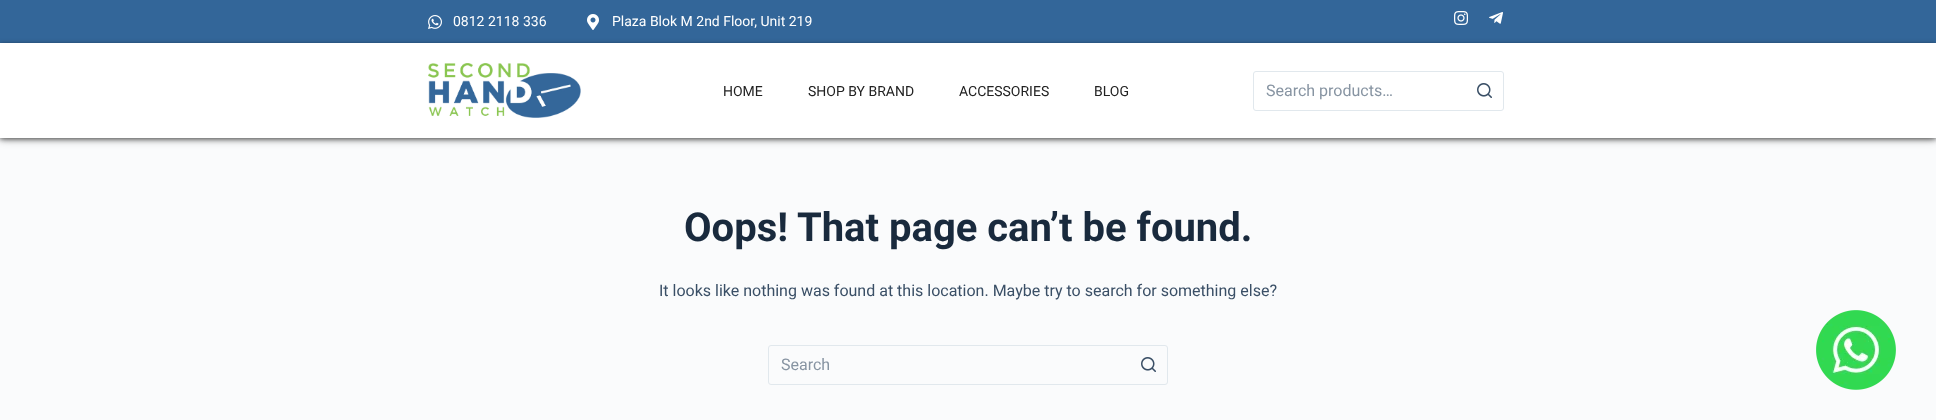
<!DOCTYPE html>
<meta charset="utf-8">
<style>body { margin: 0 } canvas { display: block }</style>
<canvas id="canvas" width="1936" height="420"></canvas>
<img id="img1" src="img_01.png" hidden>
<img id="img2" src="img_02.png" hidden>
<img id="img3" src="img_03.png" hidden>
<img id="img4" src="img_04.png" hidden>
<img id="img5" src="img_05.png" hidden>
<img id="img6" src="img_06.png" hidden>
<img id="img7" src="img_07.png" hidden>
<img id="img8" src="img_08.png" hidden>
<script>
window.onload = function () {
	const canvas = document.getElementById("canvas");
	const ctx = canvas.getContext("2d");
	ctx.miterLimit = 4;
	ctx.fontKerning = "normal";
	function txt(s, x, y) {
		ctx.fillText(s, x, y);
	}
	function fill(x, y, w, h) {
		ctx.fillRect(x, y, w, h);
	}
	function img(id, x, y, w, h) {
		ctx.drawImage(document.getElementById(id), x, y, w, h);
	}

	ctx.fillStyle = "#FAFBFC";
	fill(0, 0, 1936, 420);
	ctx.fillStyle = "rgba(0, 0, 0, 0.5)";
	ctx.filter = "blur(5px)";
	ctx.beginPath();
	ctx.rect(0, 0, 1936, 138);
	ctx.fill();
	ctx.filter = "none";
	ctx.fillStyle = "#336699";
	fill(0, 0, 1936, 43);
	img("img1", 428, 15, 14, 14);
	img("img2", 587, 14, 12, 16);
	img("img3", 1454, 11, 14, 14);
	img("img4", 1489, 12, 14, 12);
	ctx.fillStyle = "rgba(0, 0, 0, 0.5)";
	ctx.filter = "blur(2.5px)";
	ctx.beginPath();
	ctx.rect(0, 44, 1936, 95);
	ctx.fill();
	ctx.filter = "none";
	ctx.fillStyle = "#FFFFFF";
	fill(0, 43, 1936, 95);
	img("img5", 428, 63, 153, 55);
	ctx.beginPath();
	ctx.roundRect(1253.5, 71.5, 250, 39, 2.5);
	ctx.strokeStyle = "#E1E8ED";
	ctx.stroke();
	img("img6", 1477, 83, 15, 15);
	ctx.beginPath();
	ctx.roundRect(768.5, 345.5, 399, 39, 2.5);
	ctx.stroke();
	img("img7", 1141, 357, 15, 15);
	img("img8", 1816, 310, 80, 80);
	ctx.font = "14px Roboto";
	txt("0812 2118 336", 453, 26);
	txt("Plaza Blok M 2nd Floor, Unit 219", 612, 26);
	ctx.fillStyle = "#222222";
	txt("HOME", 723, 96);
	txt("SHOP BY BRAND", 808, 96);
	txt("ACCESSORIES", 959, 96);
	txt("BLOG", 1094, 96);
	ctx.font = "16px Roboto";
	ctx.fillStyle = "#8794A2";
	txt("Search products…", 1266, 96);
	ctx.font = "bold 40px Roboto";
	ctx.fillStyle = "#192A3D";
	txt("Oops! That page can’t be found.", 684, 241);
	ctx.font = "16px Roboto";
	ctx.fillStyle = "#3A4F66";
	txt("It looks like nothing was found at this location. Maybe try to search for something else?", 659, 296);
	ctx.fillStyle = "#8794A2";
	txt("Search", 781, 370);
};
</script>
